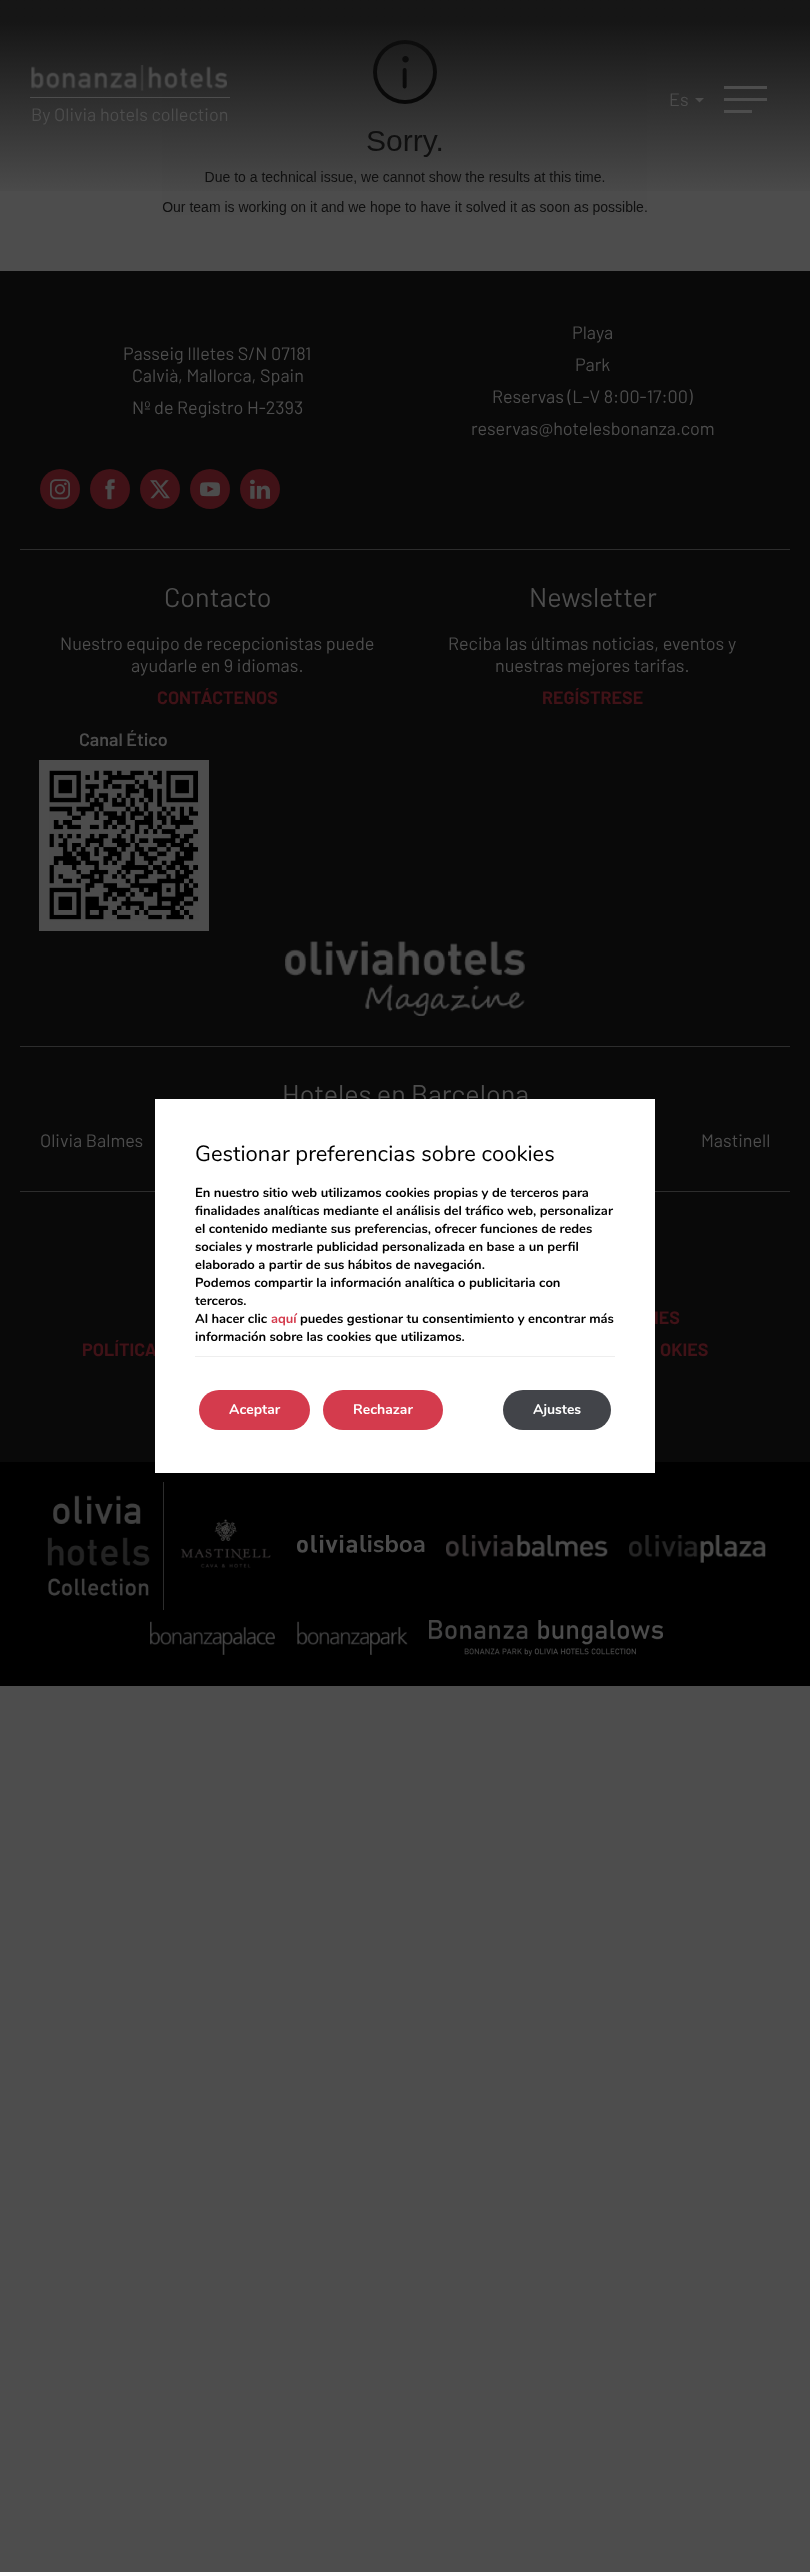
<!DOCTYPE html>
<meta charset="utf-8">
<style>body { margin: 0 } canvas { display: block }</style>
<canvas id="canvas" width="810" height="2572"></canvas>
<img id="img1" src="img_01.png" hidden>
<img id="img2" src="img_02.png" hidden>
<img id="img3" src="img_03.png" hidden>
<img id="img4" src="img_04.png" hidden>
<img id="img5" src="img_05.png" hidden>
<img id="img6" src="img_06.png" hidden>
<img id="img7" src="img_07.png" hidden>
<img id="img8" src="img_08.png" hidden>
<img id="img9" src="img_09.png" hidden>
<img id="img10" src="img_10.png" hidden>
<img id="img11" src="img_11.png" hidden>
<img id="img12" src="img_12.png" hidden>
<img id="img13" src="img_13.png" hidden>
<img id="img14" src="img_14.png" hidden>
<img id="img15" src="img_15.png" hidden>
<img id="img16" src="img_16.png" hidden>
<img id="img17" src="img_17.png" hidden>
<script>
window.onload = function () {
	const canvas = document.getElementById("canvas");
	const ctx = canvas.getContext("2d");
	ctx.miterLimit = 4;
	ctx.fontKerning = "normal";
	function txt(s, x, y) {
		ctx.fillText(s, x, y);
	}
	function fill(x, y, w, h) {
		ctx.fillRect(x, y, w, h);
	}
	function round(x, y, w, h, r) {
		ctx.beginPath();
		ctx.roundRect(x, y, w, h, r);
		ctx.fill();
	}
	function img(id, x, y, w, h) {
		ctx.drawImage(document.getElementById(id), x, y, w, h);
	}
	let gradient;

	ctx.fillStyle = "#4D4D4D";
	fill(0, 0, 810, 2572);
	img("img1", 162, 40, 485, 175);
	gradient = ctx.createLinearGradient(405, 200, 405, 0);
	gradient.addColorStop(0, "rgba(16, 16, 16, 0)");
	gradient.addColorStop(0.89, "rgba(16, 16, 16, 0.9)");
	ctx.fillStyle = gradient;
	fill(0, 0, 810, 191);
	ctx.fillStyle = "#4D4D4D";
	ctx.beginPath();
	ctx.moveTo(695, 98);
	ctx.lineTo(699.5, 102.5);
	ctx.lineTo(704, 98);
	ctx.closePath();
	ctx.fill();
	fill(724, 86, 43, 3);
	fill(724, 98, 43, 3);
	fill(724, 110, 28, 3);
	img("img2", 31, 65, 196, 26);
	fill(30, 97, 200, 1);
	ctx.fillStyle = "#090909";
	fill(0, 271, 810, 1191);
	ctx.fillStyle = "#2D2D2D";
	fill(20, 549, 770, 1);
	ctx.fillStyle = "#401217";
	ctx.beginPath();
	ctx.arc(60, 489, 20, 0, Math.PI * 2);
	ctx.fill();
	img("img3", 50, 479, 20, 21);
	ctx.beginPath();
	ctx.arc(110, 489, 20, 0, Math.PI * 2);
	ctx.fill();
	img("img4", 105, 479, 10, 21);
	ctx.beginPath();
	ctx.arc(160, 489, 20, 0, Math.PI * 2);
	ctx.fill();
	img("img5", 150, 480, 20, 19);
	ctx.beginPath();
	ctx.arc(210, 489, 20, 0, Math.PI * 2);
	ctx.fill();
	img("img6", 200, 482, 20, 15);
	ctx.beginPath();
	ctx.arc(260, 489, 20, 0, Math.PI * 2);
	ctx.fill();
	img("img7", 250, 479, 20, 20);
	ctx.fillStyle = "#2D2D2D";
	fill(20, 1046, 770, 1);
	ctx.strokeStyle = "#4D4D4D";
	ctx.lineWidth = 10;
	ctx.strokeRect(44, 765, 160, 161);
	img("img8", 49, 770, 150, 151);
	img("img9", 285, 941, 240, 75);
	fill(20, 1191, 770, 1);
	ctx.fillStyle = "#000000";
	fill(0, 1462, 810, 224);
	ctx.fillStyle = "#2D2D2D";
	fill(163, 1482, 1, 128);
	img("img10", 47, 1495, 103, 101);
	img("img11", 181, 1519, 90, 49);
	img("img12", 297, 1535, 128, 18);
	img("img13", 446, 1535, 162, 22);
	img("img14", 629, 1535, 137, 28);
	img("img15", 150, 1621, 125, 34);
	img("img16", 297, 1621, 111, 34);
	img("img17", 429, 1620, 234, 36);
	ctx.font = "18px Barlow";
	ctx.fillStyle = "#4D4D4D";
	txt("Es", 669, 106);
	txt("By Olivia hotels collection", 31, 121);
	txt("Passeig Illetes S/N 07181", 123, 360);
	txt("Calvià, Mallorca, Spain", 132, 382);
	txt("Nº de Registro H-2393", 132, 414);
	txt("Playa", 572, 339);
	txt("Park", 575, 371);
	txt("Reservas (L-V 8:00-17:00)", 492, 403);
	txt("reservas@hotelesbonanza.com", 471, 435);
	ctx.font = "27px Barlow";
	txt("Contacto", 164, 607);
	ctx.font = "18px Barlow";
	txt("Nuestro equipo de recepcionistas puede", 60, 650);
	txt("ayudarle en 9 idiomas.", 131, 672);
	ctx.font = "bold 18px Barlow";
	ctx.fillStyle = "#401217";
	txt("CONTÁCTENOS", 157, 704);
	ctx.font = "27px Barlow";
	ctx.fillStyle = "#4D4D4D";
	txt("Newsletter", 529, 607);
	ctx.font = "18px Barlow";
	txt("Reciba las últimas noticias, eventos y", 448, 650);
	txt("nuestras mejores tarifas.", 495, 672);
	ctx.font = "bold 18px Barlow";
	ctx.fillStyle = "#401217";
	txt("REGÍSTRESE", 542, 704);
	ctx.font = "600 18px Barlow";
	ctx.fillStyle = "#4D4D4D";
	txt("Canal Ético", 79, 746);
	ctx.font = "27px Barlow";
	txt("Hoteles en Barcelona", 282, 1104);
	ctx.font = "18px Barlow";
	txt("Olivia Balmes", 40, 1147);
	txt("Mastinell", 701, 1147);
	ctx.font = "bold 18px Barlow";
	ctx.fillStyle = "#401217";
	txt("POLÍTICA", 82, 1356);
	txt("IES", 654, 1324);
	txt("OKIES", 660, 1356);
	ctx.fillStyle = "#FFFFFF";
	fill(155, 1099, 500, 374);
	ctx.font = "22px Nunito";
	ctx.fillStyle = "#000000";
	txt("Gestionar preferencias sobre cookies", 195, 1161);
	ctx.font = "bold 13px Nunito";
	txt("En nuestro sitio web utilizamos cookies propias y de terceros para", 195, 1197);
	txt("finalidades analíticas mediante el análisis del tráfico web, personalizar", 195, 1215);
	txt("el contenido mediante sus preferencias, ofrecer funciones de redes", 195, 1233);
	txt("sociales y mostrarle publicidad personalizada en base a un perfil", 195, 1251);
	txt("elaborado a partir de sus hábitos de navegación.", 195, 1269);
	txt("Podemos compartir la información analítica o publicitaria con", 195, 1287);
	txt("terceros.", 195, 1305);
	txt("Al hacer clic", 195, 1323);
	ctx.fillStyle = "#D43B4D";
	txt("aquí", 271, 1323);
	ctx.fillStyle = "#000000";
	txt("puedes gestionar tu consentimiento y encontrar más", 300, 1323);
	txt("información sobre las cookies que utilizamos.", 195, 1341);
	ctx.fillStyle = "#EEEEEE";
	fill(195, 1356, 420, 1);
	ctx.fillStyle = "#D43B4D";
	round(199, 1390, 111, 40, 20);
	ctx.font = "bold 14px Nunito";
	ctx.fillStyle = "#FFFFFF";
	txt("Aceptar", 229, 1414);
	ctx.fillStyle = "#D43B4D";
	round(323, 1390, 120, 40, 20);
	ctx.fillStyle = "#FFFFFF";
	txt("Rechazar", 353, 1414);
	ctx.fillStyle = "#424449";
	round(503, 1390, 108, 40, 20);
	ctx.fillStyle = "#FFFFFF";
	txt("Ajustes", 533, 1414);
};
</script>
